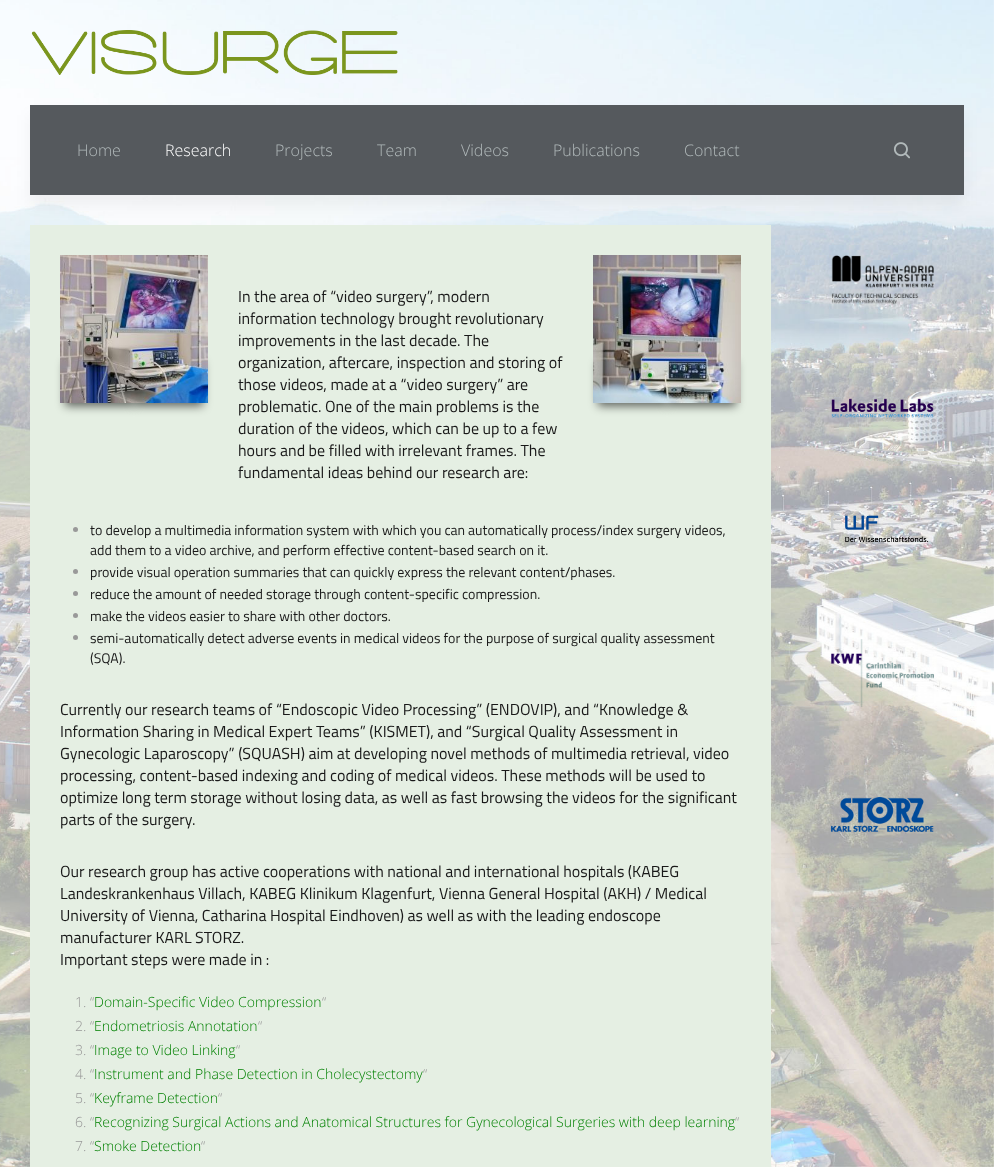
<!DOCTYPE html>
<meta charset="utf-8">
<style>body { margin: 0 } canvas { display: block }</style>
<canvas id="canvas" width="994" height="1167"></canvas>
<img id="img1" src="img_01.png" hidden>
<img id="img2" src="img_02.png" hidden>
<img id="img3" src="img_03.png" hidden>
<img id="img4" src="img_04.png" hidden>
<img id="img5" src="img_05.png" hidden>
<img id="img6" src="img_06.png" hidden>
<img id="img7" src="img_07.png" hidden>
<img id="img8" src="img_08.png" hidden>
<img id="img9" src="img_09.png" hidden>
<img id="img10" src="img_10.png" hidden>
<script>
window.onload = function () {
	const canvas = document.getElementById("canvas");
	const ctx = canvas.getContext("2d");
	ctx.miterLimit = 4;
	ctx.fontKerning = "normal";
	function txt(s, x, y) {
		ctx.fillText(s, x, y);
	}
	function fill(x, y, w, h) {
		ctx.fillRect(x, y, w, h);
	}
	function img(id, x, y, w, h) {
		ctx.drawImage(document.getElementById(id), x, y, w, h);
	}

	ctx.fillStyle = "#FFFFFF";
	fill(0, 0, 994, 1167);
	img("img1", 0, 0, 994, 1167);
	img("img2", 31, 30, 367, 45);
	ctx.fillStyle = "rgba(0, 0, 0, 0.05)";
	ctx.filter = "blur(7.5px)";
	ctx.beginPath();
	ctx.rect(30, 115, 934, 90);
	ctx.fill();
	ctx.filter = "none";
	ctx.fillStyle = "#55595D";
	fill(30, 105, 934, 90);
	img("img3", 893, 142, 17, 17);
	ctx.fillStyle = "#E5EFE3";
	fill(30, 225, 741, 942);
	ctx.fillStyle = "rgba(0, 0, 0, 0.6)";
	ctx.filter = "blur(5px)";
	ctx.beginPath();
	ctx.rect(65, 362, 69, 44);
	ctx.fill();
	ctx.filter = "none";
	ctx.filter = "blur(5px)";
	ctx.beginPath();
	ctx.rect(134, 362, 69, 44);
	ctx.fill();
	ctx.filter = "none";
	img("img4", 60, 255, 148, 148);
	ctx.filter = "blur(5px)";
	ctx.beginPath();
	ctx.rect(598, 362, 69, 44);
	ctx.fill();
	ctx.filter = "none";
	ctx.filter = "blur(5px)";
	ctx.beginPath();
	ctx.rect(667, 362, 69, 44);
	ctx.fill();
	ctx.filter = "none";
	img("img5", 593, 255, 148, 148);
	ctx.fillStyle = "#999999";
	ctx.beginPath();
	ctx.arc(75.5, 529.5, 2.5, 0, Math.PI * 2);
	ctx.fill();
	ctx.beginPath();
	ctx.arc(75.5, 571.5, 2.5, 0, Math.PI * 2);
	ctx.fill();
	ctx.beginPath();
	ctx.arc(75.5, 593.5, 2.5, 0, Math.PI * 2);
	ctx.fill();
	ctx.beginPath();
	ctx.arc(75.5, 615.5, 2.5, 0, Math.PI * 2);
	ctx.fill();
	ctx.beginPath();
	ctx.arc(75.5, 637.5, 2.5, 0, Math.PI * 2);
	ctx.fill();
	img("img6", 831, 255, 103, 50);
	img("img7", 831, 398, 103, 20);
	img("img8", 831, 515, 98, 28);
	img("img9", 831, 639, 103, 68);
	img("img10", 831, 797, 103, 35);
	ctx.font = "300 16px Open Sans";
	ctx.fillStyle = "#B1B9BA";
	txt("Home", 77, 156);
	ctx.fillStyle = "#FFFFFF";
	txt("Research", 165, 156);
	ctx.fillStyle = "#B1B9BA";
	txt("Projects", 275, 156);
	txt("Team", 377, 156);
	txt("Videos", 461, 156);
	txt("Publications", 553, 156);
	txt("Contact", 684, 156);
	ctx.font = "16px Titillium Web";
	ctx.fillStyle = "#191919";
	txt("In the area of “video surgery”, modern", 238, 302);
	txt("information technology brought revolutionary", 238, 324);
	txt("improvements in the last decade. The", 238, 346);
	txt("organization, aftercare, inspection and storing of", 238, 368);
	txt("those videos, made at a “video surgery” are", 238, 390);
	txt("problematic. One of the main problems is the", 238, 412);
	txt("duration of the videos, which can be up to a few", 238, 434);
	txt("hours and be filled with irrelevant frames. The", 238, 456);
	txt("fundamental ideas behind our research are:", 238, 478);
	ctx.font = "14px Titillium Web";
	txt("to develop a multimedia information system with which you can automatically process/index surgery videos,", 90, 535);
	txt("add them to a video archive, and perform effective content-based search on it.", 90, 555);
	txt("provide visual operation summaries that can quickly express the relevant content/phases.", 90, 577);
	txt("reduce the amount of needed storage through content-specific compression.", 90, 599);
	txt("make the videos easier to share with other doctors.", 90, 621);
	txt("semi-automatically detect adverse events in medical videos for the purpose of surgical quality assessment", 90, 643);
	txt("(SQA).", 90, 663);
	ctx.font = "16px Titillium Web";
	txt("Currently our research teams of “Endoscopic Video Processing” (ENDOVIP), and “Knowledge &", 60, 715);
	txt("Information Sharing in Medical Expert Teams” (KISMET), and “Surgical Quality Assessment in", 60, 737);
	txt("Gynecologic Laparoscopy” (SQUASH) aim at developing novel methods of multimedia retrieval, video", 60, 759);
	txt("processing, content-based indexing and coding of medical videos. These methods will be used to", 60, 781);
	txt("optimize long term storage without losing data, as well as fast browsing the videos for the significant", 60, 803);
	txt("parts of the surgery.", 60, 825);
	txt("Our research group has active cooperations with national and international hospitals (KABEG", 60, 877);
	txt("Landeskrankenhaus Villach, KABEG Klinikum Klagenfurt, Vienna General Hospital (AKH) / Medical", 60, 899);
	txt("University of Vienna, Catharina Hospital Eindhoven) as well as with the leading endoscope", 60, 921);
	txt("manufacturer KARL STORZ.", 60, 943);
	txt("Important steps were made in :", 60, 965);
	ctx.font = "300 14px Open Sans";
	ctx.fillStyle = "#999999";
	txt("1. “", 75, 1007);
	ctx.fillStyle = "#008000";
	txt("Domain-Specific Video Compression", 94, 1007);
	ctx.fillStyle = "#999999";
	txt("“", 322, 1007);
	txt("2. “", 75, 1031);
	ctx.fillStyle = "#008000";
	txt("Endometriosis Annotation", 94, 1031);
	ctx.fillStyle = "#999999";
	txt("“", 258, 1031);
	txt("3. “", 75, 1055);
	ctx.fillStyle = "#008000";
	txt("Image to Video Linking", 94, 1055);
	ctx.fillStyle = "#999999";
	txt("“", 236, 1055);
	txt("4. “", 75, 1079);
	ctx.fillStyle = "#008000";
	txt("Instrument and Phase Detection in Cholecystectomy", 94, 1079);
	ctx.fillStyle = "#999999";
	txt("“", 423, 1079);
	txt("5. “", 75, 1103);
	ctx.fillStyle = "#008000";
	txt("Keyframe Detection", 94, 1103);
	ctx.fillStyle = "#999999";
	txt("“", 218, 1103);
	txt("6. “", 75, 1127);
	ctx.fillStyle = "#008000";
	txt("Recognizing Surgical Actions and Anatomical Structures for Gynecological Surgeries with deep learning", 94, 1127);
	ctx.fillStyle = "#999999";
	txt("“", 735, 1127);
	txt("7. “", 75, 1151);
	ctx.fillStyle = "#008000";
	txt("Smoke Detection", 94, 1151);
	ctx.fillStyle = "#999999";
	txt("“", 201, 1151);
};
</script>
